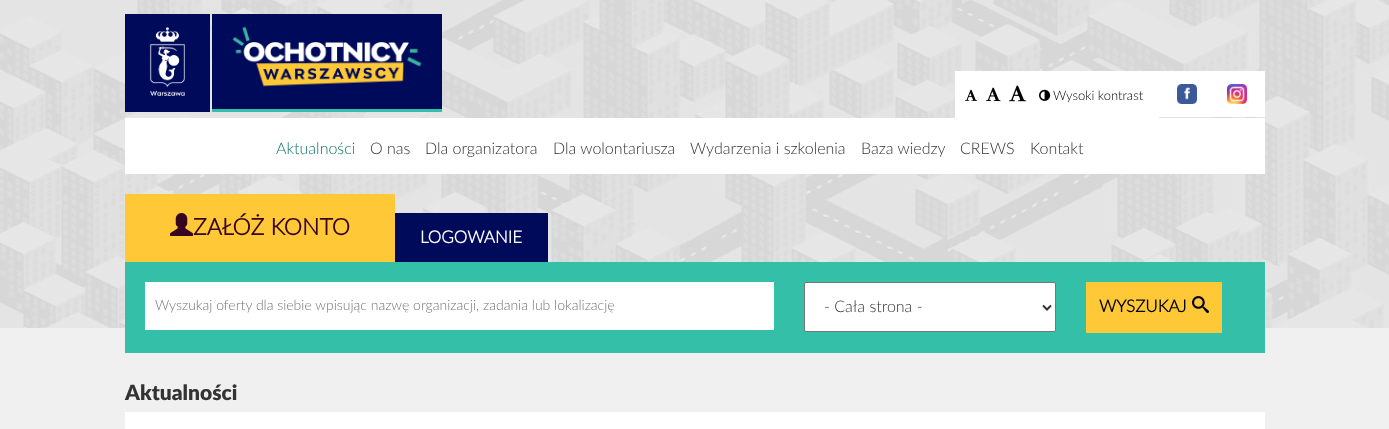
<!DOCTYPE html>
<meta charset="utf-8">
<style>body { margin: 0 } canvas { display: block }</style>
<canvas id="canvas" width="1389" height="429"></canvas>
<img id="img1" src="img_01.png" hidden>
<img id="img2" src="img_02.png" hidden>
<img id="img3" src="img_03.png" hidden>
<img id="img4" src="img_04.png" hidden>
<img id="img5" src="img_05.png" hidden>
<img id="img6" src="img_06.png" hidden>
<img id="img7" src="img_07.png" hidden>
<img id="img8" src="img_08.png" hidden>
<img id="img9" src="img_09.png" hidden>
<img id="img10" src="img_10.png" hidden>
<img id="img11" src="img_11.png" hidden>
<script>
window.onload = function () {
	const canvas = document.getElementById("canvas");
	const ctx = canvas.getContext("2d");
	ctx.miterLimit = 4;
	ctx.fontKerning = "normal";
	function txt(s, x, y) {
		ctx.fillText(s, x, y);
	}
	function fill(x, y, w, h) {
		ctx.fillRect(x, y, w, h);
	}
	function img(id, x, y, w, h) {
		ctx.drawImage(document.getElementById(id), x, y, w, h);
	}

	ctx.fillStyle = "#FFFFFF";
	fill(0, 0, 1389, 429);
	img("img1", 0, 0, 1389, 328);
	ctx.fillStyle = "#000A5A";
	fill(125, 14, 85, 98);
	img("img2", 149, 27, 36, 69);
	fill(212, 14, 230, 95);
	ctx.fillStyle = "#34C0A8";
	fill(212, 109, 230, 3);
	img("img3", 232, 26, 190, 61);
	ctx.fillStyle = "#FFFFFF";
	fill(955, 71, 204, 47);
	img("img4", 965, 89, 13, 12);
	img("img5", 986, 87, 15, 15);
	img("img6", 1009, 85, 17, 17);
	img("img7", 1039, 89, 12, 12);
	fill(1159, 71, 106, 46);
	img("img8", 1177, 84, 20, 20);
	img("img9", 1227, 84, 20, 20);
	fill(125, 118, 1140, 56);
	ctx.fillStyle = "#FFC837";
	fill(125, 194, 270, 68);
	img("img10", 170, 213, 23, 23);
	ctx.fillStyle = "#000A5A";
	fill(395, 214, 152, 48);
	fill(395, 213, 153, 1);
	fill(547, 213, 1, 50);
	ctx.fillStyle = "#F0F0F0";
	fill(0, 328, 1389, 101);
	ctx.fillStyle = "#34C0A8";
	fill(125, 262, 1140, 91);
	ctx.fillStyle = "#FFFFFF";
	fill(145, 282, 629, 48);
	ctx.beginPath();
	ctx.roundRect(804.5, 282.5, 251, 49, 1.5);
	ctx.fill();
	ctx.strokeStyle = "#767676";
	ctx.stroke();
	ctx.beginPath();
	ctx.moveTo(1043, 305.5);
	ctx.lineTo(1047, 309.5);
	ctx.lineTo(1051, 305.5);
	ctx.strokeStyle = "#333333";
	ctx.lineWidth = 2;
	ctx.stroke();
	ctx.fillStyle = "#FFC837";
	fill(1086, 282, 136, 51);
	img("img11", 1192, 296, 17, 17);
	ctx.fillStyle = "#FFFFFF";
	fill(125, 412, 1140, 17);
	ctx.font = "300 13px Lato";
	ctx.fillStyle = "#000000";
	txt("Wysoki kontrast", 1053, 100);
	ctx.font = "300 16px Lato";
	ctx.fillStyle = "#0D7664";
	txt("Aktualności", 276, 154);
	ctx.fillStyle = "#333333";
	txt("O nas", 370, 154);
	txt("Dla organizatora", 425, 154);
	txt("Dla wolontariusza", 553, 154);
	txt("Wydarzenia i szkolenia", 690, 154);
	txt("Baza wiedzy", 861, 154);
	txt("CREWS", 960, 154);
	txt("Kontakt", 1030, 154);
	ctx.font = "bold 23px Lato";
	ctx.fillStyle = "#37051F";
	txt("ZAŁÓŻ KONTO", 193, 235);
	ctx.font = "bold 17px Lato";
	ctx.fillStyle = "#FFFFFF";
	txt("LOGOWANIE", 420, 243);
	ctx.font = "300 14px Lato";
	ctx.fillStyle = "#757575";
	txt("Wyszukaj oferty dla siebie wpisując nazwę organizacji, zadania lub lokalizację", 155, 310);
	ctx.font = "300 16px Lato";
	ctx.fillStyle = "#333333";
	txt("- Cała strona -", 824, 312);
	ctx.font = "bold 17px Lato";
	ctx.fillStyle = "#000000";
	txt("WYSZUKAJ", 1099, 312);
	ctx.font = "900 21px Lato";
	ctx.fillStyle = "#333333";
	txt("Aktualności", 125, 400);
};
</script>
